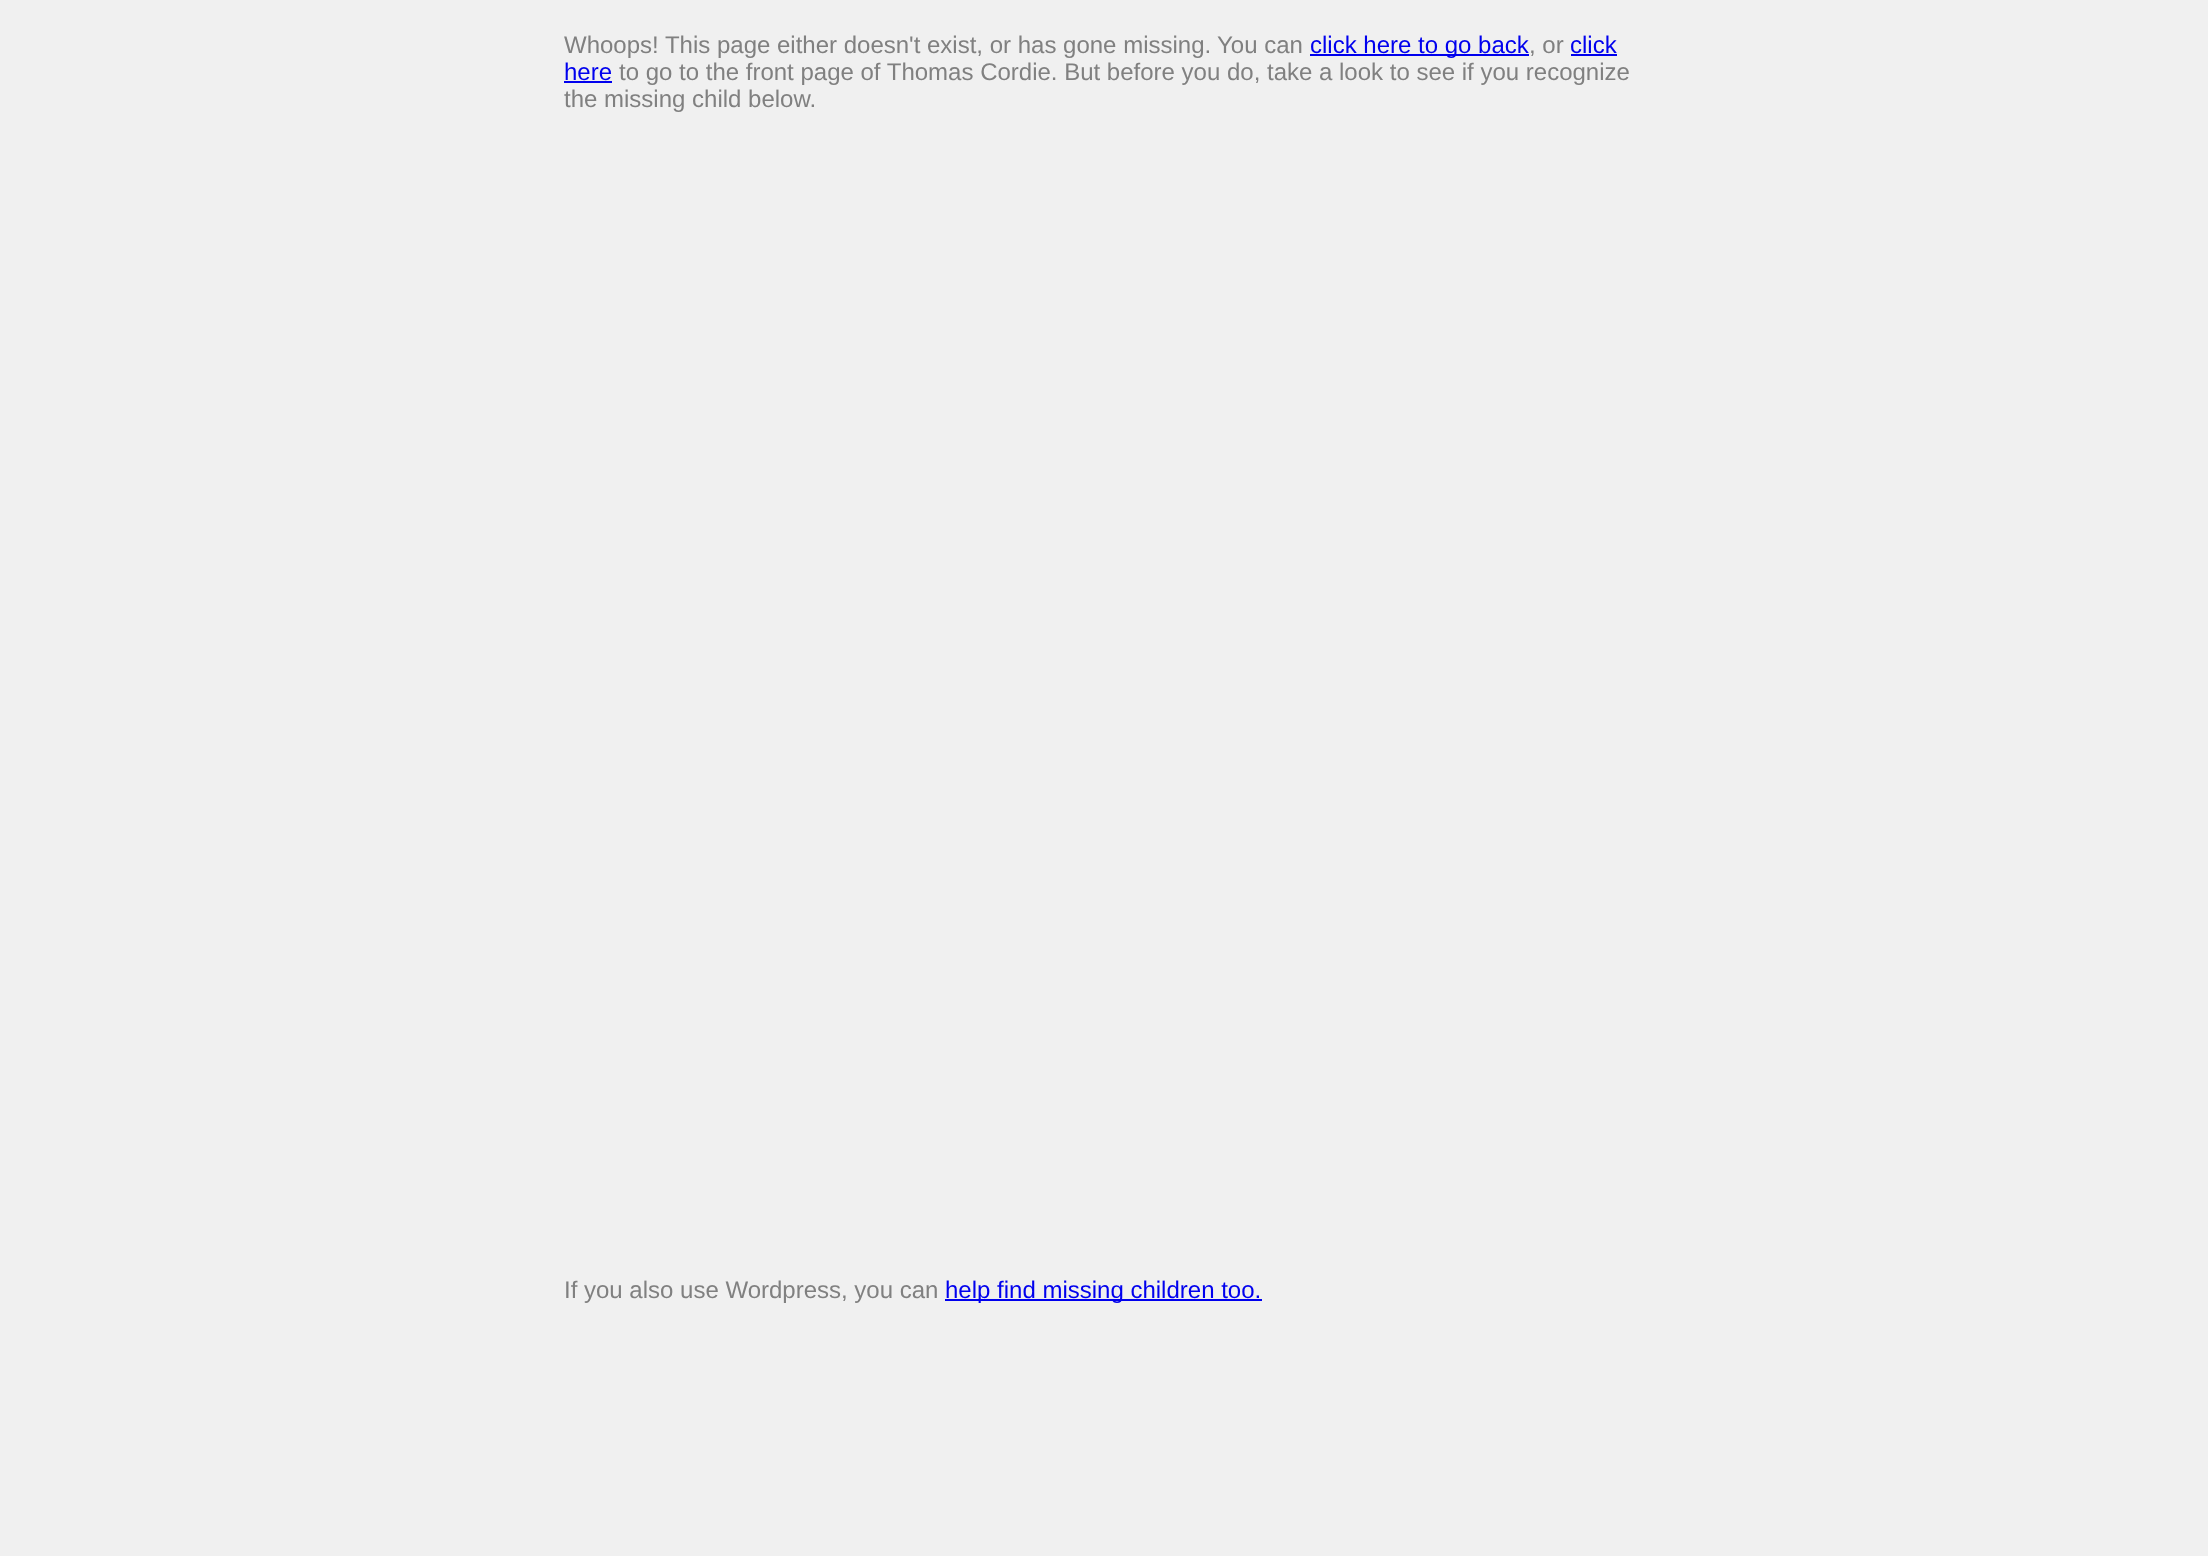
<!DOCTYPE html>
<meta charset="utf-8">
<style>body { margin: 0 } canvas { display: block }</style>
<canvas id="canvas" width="2208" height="1556"></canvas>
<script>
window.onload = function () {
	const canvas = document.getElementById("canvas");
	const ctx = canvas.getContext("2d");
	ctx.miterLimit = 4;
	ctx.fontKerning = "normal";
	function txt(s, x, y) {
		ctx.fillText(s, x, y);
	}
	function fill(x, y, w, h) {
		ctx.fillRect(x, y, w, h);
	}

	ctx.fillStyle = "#F0F0F0";
	fill(0, 0, 2208, 1556);
	ctx.fillStyle = "#0000EE";
	fill(1310, 54, 219, 2);
	fill(1571, 54, 46, 2);
	fill(564, 81, 48, 2);
	fill(945, 1299, 317, 2);
	ctx.font = "24px Liberation Sans";
	ctx.fillStyle = "#808080";
	txt("Whoops! This page either doesn't exist, or has gone missing.", 564, 53);
	txt("You can", 1217, 53);
	ctx.fillStyle = "#0000EE";
	txt("click here to go back", 1310, 53);
	ctx.fillStyle = "#808080";
	txt(", or", 1529, 53);
	ctx.fillStyle = "#0000EE";
	txt("click", 1570, 53);
	txt("here", 564, 80);
	ctx.fillStyle = "#808080";
	txt("to go to the front page of Thomas Cordie. But before you do, take a look to see if you recognize", 619, 80);
	txt("the missing child below.", 564, 107);
	txt("If you also use Wordpress, you can", 564, 1298);
	ctx.fillStyle = "#0000EE";
	txt("help find missing children too.", 945, 1298);
};
</script>
